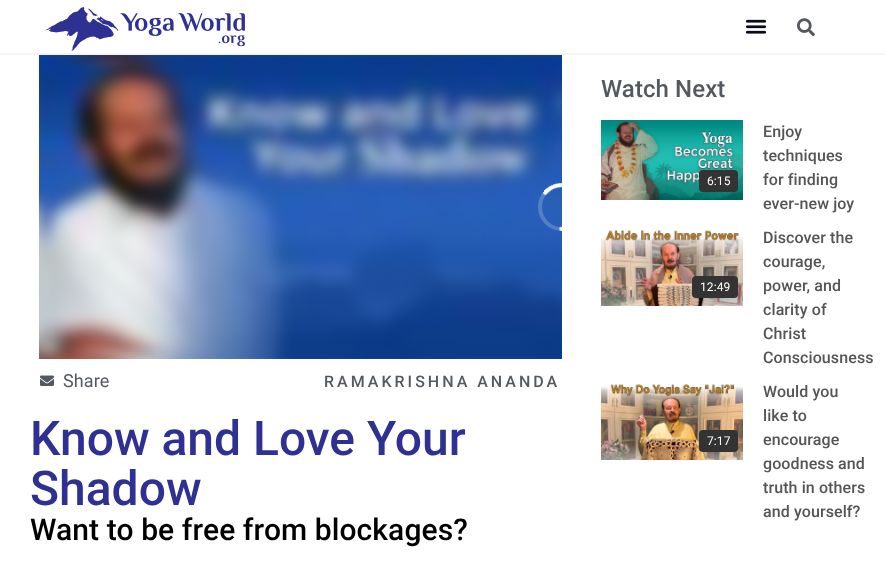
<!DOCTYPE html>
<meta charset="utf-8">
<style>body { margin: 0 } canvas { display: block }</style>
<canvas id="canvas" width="886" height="565"></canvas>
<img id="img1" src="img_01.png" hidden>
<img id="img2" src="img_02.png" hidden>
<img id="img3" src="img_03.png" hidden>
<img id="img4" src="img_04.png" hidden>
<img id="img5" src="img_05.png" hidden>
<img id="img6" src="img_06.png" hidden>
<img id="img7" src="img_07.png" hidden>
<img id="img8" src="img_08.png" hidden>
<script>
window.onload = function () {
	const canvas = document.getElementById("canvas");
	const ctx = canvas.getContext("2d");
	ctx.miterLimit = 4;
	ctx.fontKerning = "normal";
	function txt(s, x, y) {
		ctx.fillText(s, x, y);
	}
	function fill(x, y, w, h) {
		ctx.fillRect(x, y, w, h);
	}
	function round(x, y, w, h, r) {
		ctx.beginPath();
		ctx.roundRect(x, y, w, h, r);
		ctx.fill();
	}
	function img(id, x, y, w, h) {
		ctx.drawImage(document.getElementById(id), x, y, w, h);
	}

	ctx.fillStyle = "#FFFFFF";
	fill(0, 0, 886, 565);
	ctx.fillStyle = "#F5F5F5";
	fill(0, 53, 885, 2);
	img("img1", 45, 7, 200, 44);
	img("img2", 745, 19, 22, 15);
	img("img3", 797, 18, 18, 19);
	img("img4", 39, 55, 523, 304);
	img("img5", 40, 375, 14, 11);
	img("img6", 601, 120, 142, 80);
	ctx.fillStyle = "#333333";
	round(699, 170, 39, 22, 4);
	img("img7", 601, 230, 142, 76);
	round(692, 276, 46, 22, 4);
	img("img8", 601, 384, 142, 76);
	round(699, 430, 39, 22, 4);
	ctx.letterSpacing = "0.1px";
	ctx.font = "18px Roboto";
	ctx.fillStyle = "#54595F";
	txt("Share", 63, 387);
	ctx.letterSpacing = "3px";
	ctx.font = "500 16px Roboto";
	txt("RAMAKRISHNA ANANDA", 324, 387);
	ctx.letterSpacing = "0px";
	ctx.font = "500 48px Roboto";
	ctx.fillStyle = "#2E3192";
	txt("Know and Love Your", 30, 455);
	txt("Shadow", 30, 505);
	ctx.letterSpacing = "0.1px";
	ctx.font = "500 30px Roboto";
	ctx.fillStyle = "#000000";
	txt("Want to be free from blockages?", 30, 540);
	ctx.font = "500 24px Roboto";
	ctx.fillStyle = "#54595F";
	txt("Watch Next", 601, 97);
	ctx.font = "12px Roboto";
	ctx.fillStyle = "#FFFFFF";
	txt("6:15", 707, 185);
	ctx.font = "500 16px Roboto";
	ctx.fillStyle = "#555555";
	txt("Enjoy", 763, 137);
	txt("techniques", 763, 161);
	txt("for finding", 763, 185);
	txt("ever-new joy", 763, 209);
	ctx.font = "12px Roboto";
	ctx.fillStyle = "#FFFFFF";
	txt("12:49", 700, 291);
	ctx.font = "500 16px Roboto";
	ctx.fillStyle = "#555555";
	txt("Discover the", 763, 243);
	txt("courage,", 763, 267);
	txt("power, and", 763, 291);
	txt("clarity of", 763, 315);
	txt("Christ", 763, 339);
	txt("Consciousness", 763, 363);
	ctx.font = "12px Roboto";
	ctx.fillStyle = "#FFFFFF";
	txt("7:17", 707, 445);
	ctx.font = "500 16px Roboto";
	ctx.fillStyle = "#555555";
	txt("Would you", 763, 397);
	txt("like to", 763, 421);
	txt("encourage", 763, 445);
	txt("goodness and", 763, 469);
	txt("truth in others", 763, 493);
	txt("and yourself?", 763, 517);
};
</script>
